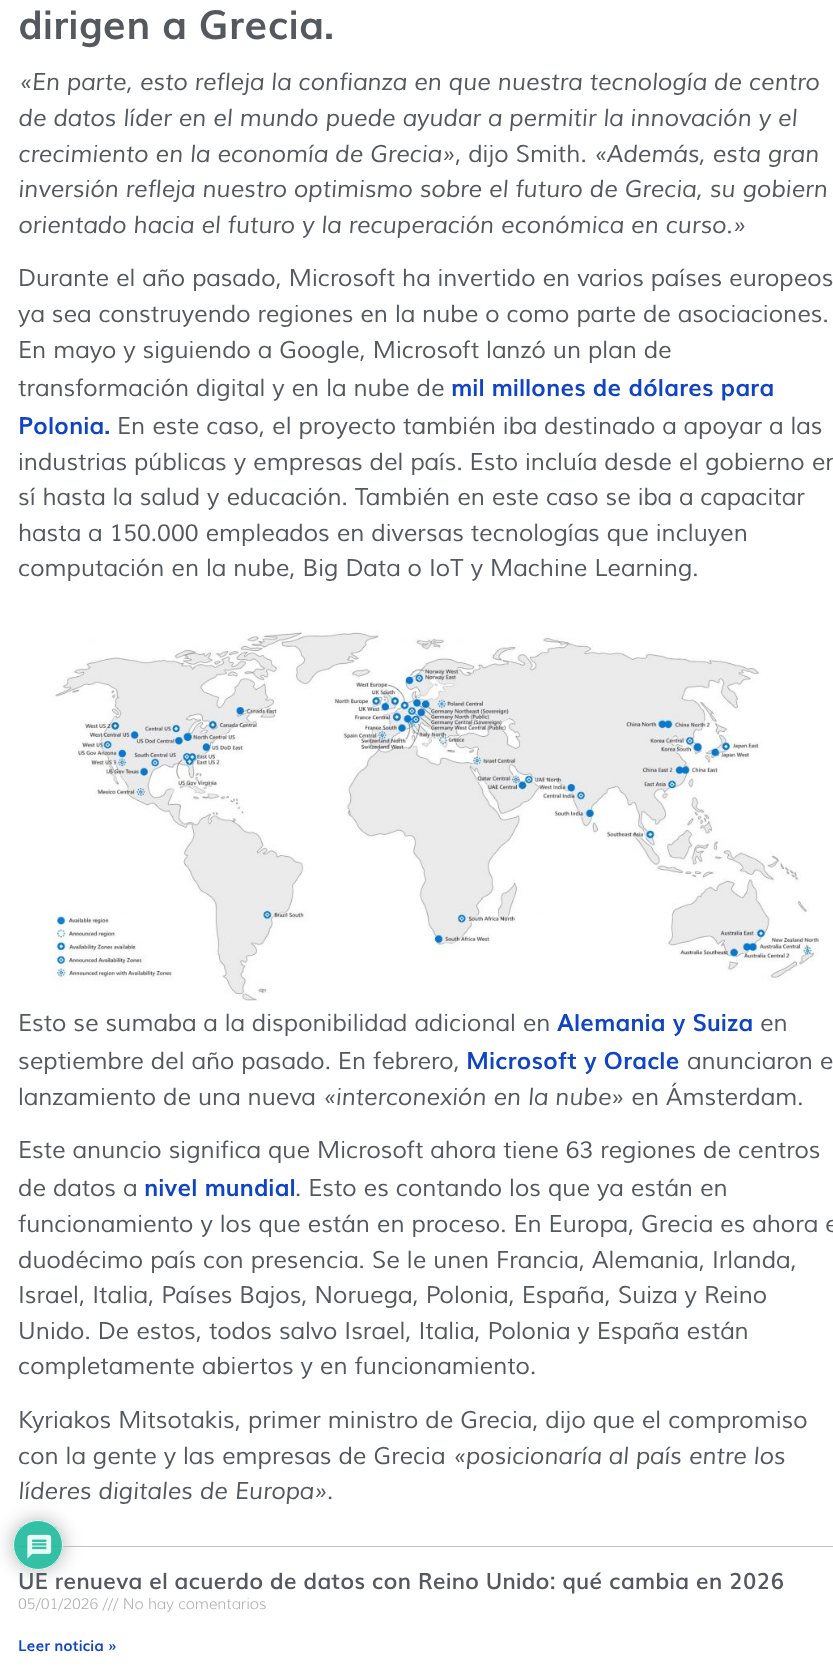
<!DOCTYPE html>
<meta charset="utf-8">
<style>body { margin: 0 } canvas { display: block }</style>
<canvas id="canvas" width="833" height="1670"></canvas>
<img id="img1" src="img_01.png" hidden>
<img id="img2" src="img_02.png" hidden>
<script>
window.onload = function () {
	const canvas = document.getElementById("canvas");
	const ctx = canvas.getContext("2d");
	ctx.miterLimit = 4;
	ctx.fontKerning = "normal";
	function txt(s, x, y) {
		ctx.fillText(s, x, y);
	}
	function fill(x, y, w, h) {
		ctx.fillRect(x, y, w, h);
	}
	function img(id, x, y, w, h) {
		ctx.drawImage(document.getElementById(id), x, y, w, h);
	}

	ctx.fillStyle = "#FFFFFF";
	fill(0, 0, 833, 1670);
	img("img1", 50, 631, 770, 370);
	ctx.fillStyle = "#C2C2C2";
	fill(18, 1546, 815, 1);
	ctx.save();
	ctx.beginPath();
	ctx.moveTo(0, 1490);
	ctx.lineTo(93, 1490);
	ctx.lineTo(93, 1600);
	ctx.lineTo(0, 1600);
	ctx.closePath();
	ctx.moveTo(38, 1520);
	ctx.bezierCurveTo(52, 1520, 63, 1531, 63, 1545);
	ctx.bezierCurveTo(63, 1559, 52, 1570, 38, 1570);
	ctx.bezierCurveTo(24, 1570, 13, 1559, 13, 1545);
	ctx.bezierCurveTo(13, 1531, 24, 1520, 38, 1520);
	ctx.closePath();
	ctx.clip("evenodd");
	ctx.fillStyle = "rgba(170, 170, 170, 0.9)";
	ctx.filter = "blur(9.5px)";
	ctx.beginPath();
	ctx.roundRect(13, 1520, 50, 50, 25);
	ctx.fill();
	ctx.filter = "none";
	ctx.restore();
	ctx.fillStyle = "rgba(29, 185, 154, 0.9)";
	ctx.beginPath();
	ctx.arc(38, 1545, 25, 0, Math.PI * 2);
	ctx.fill();
	ctx.beginPath();
	ctx.arc(38, 1545, 24.5, 0, Math.PI * 2);
	ctx.strokeStyle = "rgba(255, 255, 255, 0.9)";
	ctx.stroke();
	img("img2", 27, 1534, 25, 25);
	ctx.font = "bold 40px Muli";
	ctx.fillStyle = "#54595F";
	txt("dirigen a Grecia.", 18, 39);
	ctx.font = "italic 23.75px Muli";
	txt("«En parte, esto refleja la confianza en que nuestra tecnología de centro", 18, 90);
	txt("de datos líder en el mundo puede ayudar a permitir la innovación y el", 18, 126);
	txt("crecimiento en la economía de Grecia»", 18, 162);
	ctx.font = "italic 23.75px 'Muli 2'";
	txt(", dijo Smith.", 455, 162);
	ctx.font = "italic 23.75px Muli";
	txt("«Además, esta gran", 593, 162);
	txt("inversión refleja nuestro optimismo sobre el futuro de Grecia, su gobiern", 18, 197);
	txt("orientado hacia el futuro y la recuperación económica en curso.»", 18, 233);
	ctx.font = "italic 23.75px 'Muli 2'";
	txt("Durante el año pasado, Microsoft ha invertido en varios países europeos", 18, 286);
	txt("ya sea construyendo regiones en la nube o como parte de asociaciones.", 18, 322);
	txt("En mayo y siguiendo a Google, Microsoft lanzó un plan de", 18, 358);
	txt("transformación digital y en la nube de", 18, 396);
	ctx.font = "bold 23.75px Muli";
	ctx.fillStyle = "#0F44C4";
	txt("mil millones de dólares para", 451, 396);
	txt("Polonia.", 18, 434);
	ctx.font = "italic 23.75px 'Muli 2'";
	ctx.fillStyle = "#54595F";
	txt("En este caso, el proyecto también iba destinado a apoyar a las", 117, 434);
	txt("industrias públicas y empresas del país. Esto incluía desde el gobierno en", 18, 470);
	txt("sí hasta la salud y educación. También en este caso se iba a capacitar", 18, 505);
	txt("hasta a 150.000 empleados en diversas tecnologías que incluyen", 18, 541);
	txt("computación en la nube, Big Data o IoT y Machine Learning.", 18, 576);
	txt("Esto se sumaba a la disponibilidad adicional en", 18, 1031);
	ctx.font = "bold 23.75px Muli";
	ctx.fillStyle = "#0F44C4";
	txt("Alemania y Suiza", 557, 1031);
	ctx.font = "italic 23.75px 'Muli 2'";
	ctx.fillStyle = "#54595F";
	txt("en", 760, 1031);
	txt("septiembre del año pasado. En febrero,", 18, 1069);
	ctx.font = "bold 23.75px Muli";
	ctx.fillStyle = "#0F44C4";
	txt("Microsoft y Oracle", 466, 1069);
	ctx.font = "italic 23.75px 'Muli 2'";
	ctx.fillStyle = "#54595F";
	txt("anunciaron e", 687, 1069);
	txt("lanzamiento de una nueva", 18, 1105);
	ctx.font = "italic 23.75px Muli";
	txt("«interconexión en la nube", 322, 1105);
	ctx.font = "italic 23.75px 'Muli 2'";
	txt("» en Ámsterdam.", 611, 1105);
	txt("Este anuncio significa que Microsoft ahora tiene 63 regiones de centros", 18, 1158);
	txt("de datos a", 18, 1196);
	ctx.font = "bold 23.75px Muli";
	ctx.fillStyle = "#0F44C4";
	txt("nivel mundial", 144, 1196);
	ctx.font = "italic 23.75px 'Muli 2'";
	ctx.fillStyle = "#54595F";
	txt(". Esto es contando los que ya están en", 295, 1196);
	txt("funcionamiento y los que están en proceso. En Europa, Grecia es ahora e", 18, 1232);
	txt("duodécimo país con presencia. Se le unen Francia, Alemania, Irlanda,", 18, 1268);
	txt("Israel, Italia, Países Bajos, Noruega, Polonia, España, Suiza y Reino", 18, 1303);
	txt("Unido. De estos, todos salvo Israel, Italia, Polonia y España están", 18, 1339);
	txt("completamente abiertos y en funcionamiento.", 18, 1374);
	txt("Kyriakos Mitsotakis, primer ministro de Grecia, dijo que el compromiso", 18, 1428);
	txt("con la gente y las empresas de Grecia", 18, 1464);
	ctx.font = "italic 23.75px Muli";
	txt("«posicionaría al país entre los", 452, 1464);
	txt("líderes digitales de Europa»", 18, 1499);
	ctx.font = "italic 23.75px 'Muli 2'";
	txt(".", 327, 1499);
	ctx.font = "600 22.5px Muli";
	txt("UE renueva el acuerdo de datos con Reino Unido: qué cambia en 2026", 18, 1589);
	ctx.font = "300 15px Muli";
	ctx.fillStyle = "#ADADAD";
	txt("05/01/2026 /// No hay comentarios", 18, 1609);
	ctx.font = "bold 15px Muli";
	ctx.fillStyle = "#0F44C4";
	txt("Leer noticia »", 18, 1651);
};
</script>
